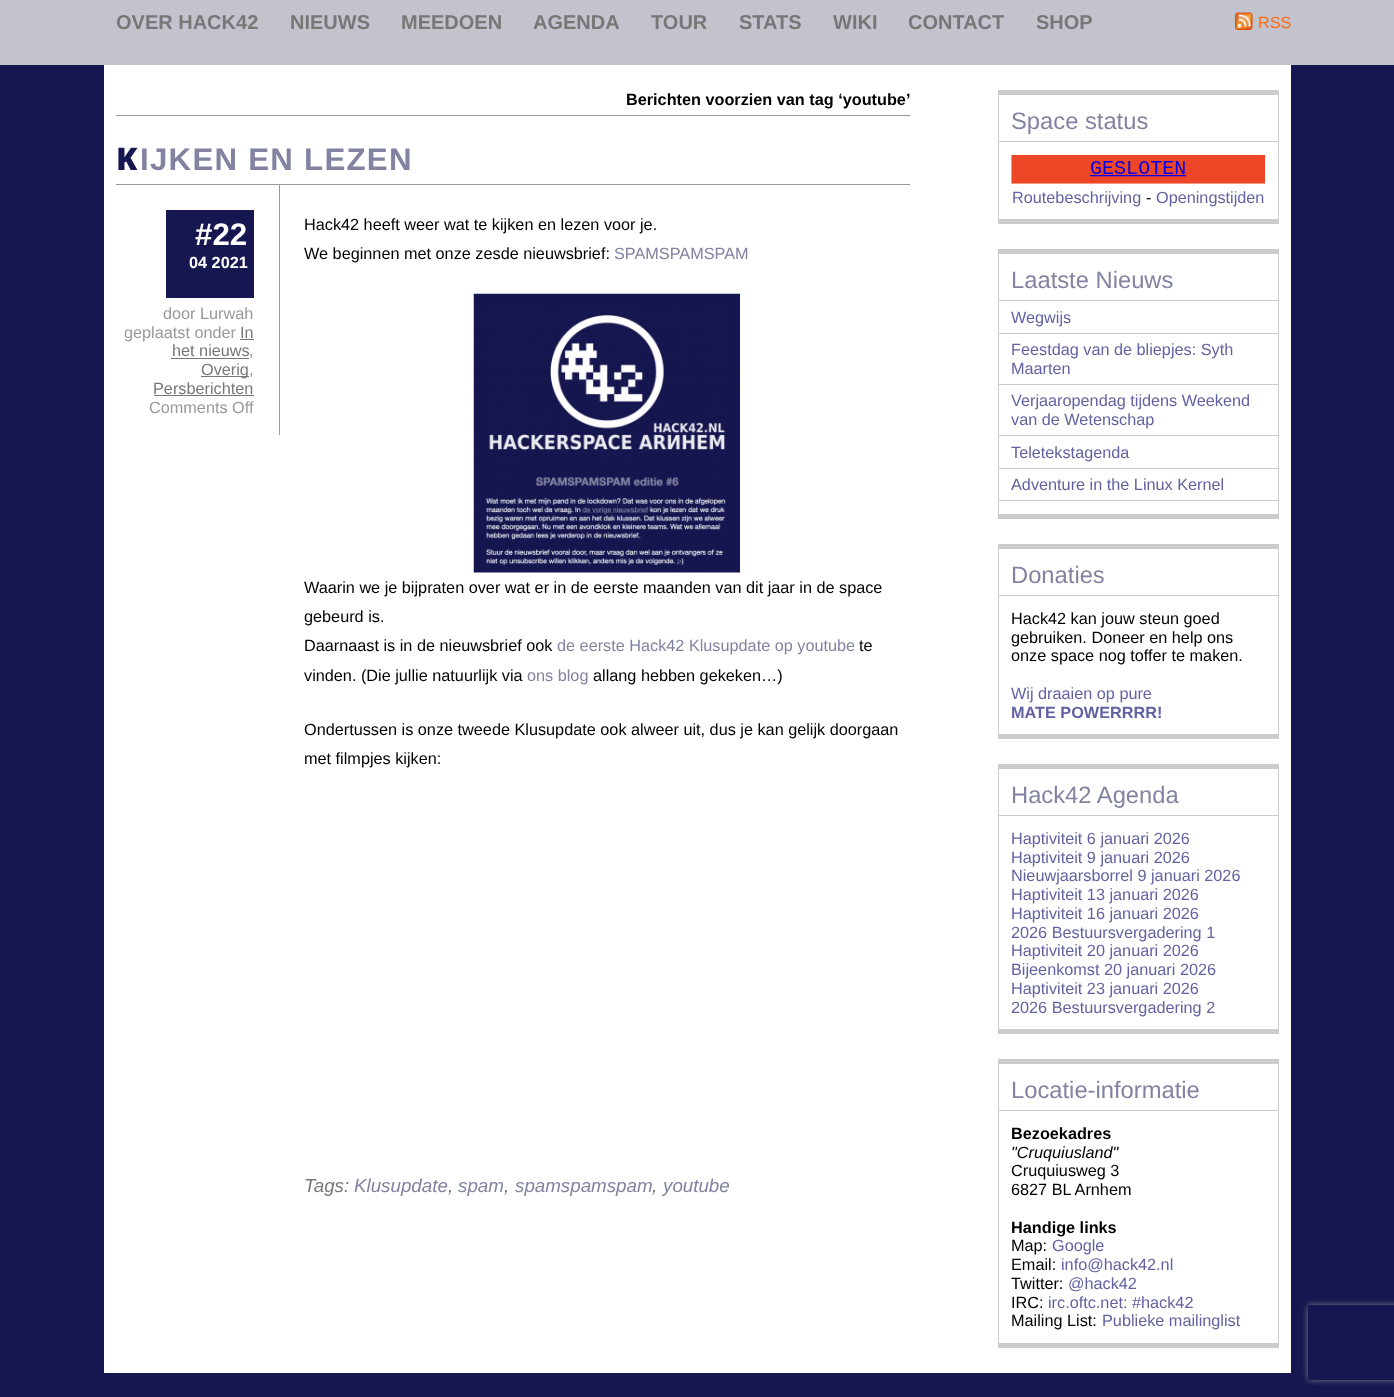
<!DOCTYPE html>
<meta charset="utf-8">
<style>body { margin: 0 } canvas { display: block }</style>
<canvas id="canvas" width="1394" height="1397"></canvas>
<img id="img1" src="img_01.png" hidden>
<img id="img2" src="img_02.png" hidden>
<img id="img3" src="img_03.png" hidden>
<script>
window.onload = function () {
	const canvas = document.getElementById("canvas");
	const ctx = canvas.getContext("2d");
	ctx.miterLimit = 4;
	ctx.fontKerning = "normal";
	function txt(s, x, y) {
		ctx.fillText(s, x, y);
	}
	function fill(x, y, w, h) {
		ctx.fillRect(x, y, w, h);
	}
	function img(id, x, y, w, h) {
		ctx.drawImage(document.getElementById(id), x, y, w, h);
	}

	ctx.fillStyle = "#161650";
	fill(0, 0, 1394, 1397);
	ctx.fillStyle = "#C3C3CE";
	fill(0, 0, 1394, 65);
	img("img1", 1235, 12, 18, 18);
	ctx.fillStyle = "#FFFFFF";
	fill(104, 65, 1187, 1308);
	ctx.fillStyle = "#999999";
	fill(116, 115, 794, 1);
	fill(116, 184, 794, 1);
	fill(279, 185, 1, 250);
	ctx.fillStyle = "#161650";
	fill(166, 210, 88, 88);
	ctx.fillStyle = "#777777";
	fill(240, 339, 14, 1);
	fill(171, 358, 78, 1);
	fill(201, 376, 48, 1);
	fill(154, 395, 100, 1);
	img("img2", 473, 293, 267, 280);
	ctx.fillStyle = "#CCCCCC";
	fill(998, 90, 281, 5);
	fill(1278, 90, 1, 134);
	fill(998, 219, 281, 5);
	fill(998, 90, 1, 134);
	fill(999, 141, 279, 1);
	img("img3", 1011, 155, 254, 29);
	fill(998, 249, 281, 5);
	fill(1278, 249, 1, 270);
	fill(998, 514, 281, 5);
	fill(998, 249, 1, 270);
	fill(999, 300, 279, 1);
	fill(999, 333, 279, 1);
	fill(999, 384, 279, 1);
	fill(999, 435, 279, 1);
	fill(999, 468, 279, 1);
	fill(999, 500, 279, 1);
	fill(998, 544, 281, 5);
	fill(1278, 544, 1, 195);
	fill(998, 734, 281, 5);
	fill(998, 544, 1, 195);
	fill(999, 595, 279, 1);
	fill(998, 764, 281, 5);
	fill(1278, 764, 1, 270);
	fill(998, 1029, 281, 5);
	fill(998, 764, 1, 270);
	fill(999, 815, 279, 1);
	fill(998, 1059, 281, 5);
	fill(1278, 1059, 1, 289);
	fill(998, 1343, 281, 5);
	fill(998, 1059, 1, 289);
	fill(999, 1110, 279, 1);
	ctx.save();
	ctx.beginPath();
	ctx.moveTo(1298, 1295);
	ctx.lineTo(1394, 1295);
	ctx.lineTo(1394, 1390);
	ctx.lineTo(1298, 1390);
	ctx.closePath();
	ctx.moveTo(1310.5, 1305);
	ctx.lineTo(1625.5, 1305);
	ctx.bezierCurveTo(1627, 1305, 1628, 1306, 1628, 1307.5);
	ctx.lineTo(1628, 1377.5);
	ctx.bezierCurveTo(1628, 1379, 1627, 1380, 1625.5, 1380);
	ctx.lineTo(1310.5, 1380);
	ctx.bezierCurveTo(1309, 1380, 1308, 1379, 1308, 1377.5);
	ctx.lineTo(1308, 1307.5);
	ctx.bezierCurveTo(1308, 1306, 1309, 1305, 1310.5, 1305);
	ctx.closePath();
	ctx.clip("evenodd");
	ctx.fillStyle = "#808080";
	ctx.filter = "blur(3px)";
	ctx.beginPath();
	ctx.roundRect(1308, 1305, 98, 75, 2.5);
	ctx.fill();
	ctx.filter = "none";
	ctx.restore();
	ctx.font = "bold 20px Liberation Sans";
	ctx.fillStyle = "#777777";
	txt("OVER HACK42", 116, 29);
	txt("NIEUWS", 290, 29);
	txt("MEEDOEN", 401, 29);
	txt("AGENDA", 533, 29);
	txt("TOUR", 651, 29);
	txt("STATS", 739, 29);
	txt("WIKI", 833, 29);
	txt("CONTACT", 908, 29);
	txt("SHOP", 1036, 29);
	ctx.font = "16.25px Liberation Sans";
	ctx.fillStyle = "#FD6A11";
	txt("RSS", 1258, 28);
	ctx.font = "bold 16.25px Liberation Sans";
	ctx.fillStyle = "#000000";
	txt("Berichten voorzien van tag ‘youtube’", 626, 105);
	ctx.letterSpacing = "1.25px";
	ctx.font = "900 31.25px Noto Sans";
	ctx.fillStyle = "#161650";
	txt("K", 116, 170);
	ctx.font = "bold 31.25px Liberation Sans";
	ctx.fillStyle = "#8282A1";
	txt("IJKEN EN LEZEN", 140, 170);
	ctx.letterSpacing = "0px";
	ctx.fillStyle = "#FFFFFF";
	txt("#22", 195, 245);
	ctx.font = "bold 16.25px Liberation Sans";
	txt("04 2021", 189, 268);
	ctx.font = "16.25px Liberation Sans";
	ctx.fillStyle = "#999999";
	txt("door Lurwah", 163, 319);
	txt("geplaatst onder", 124, 338);
	ctx.fillStyle = "#777777";
	txt("In", 240, 338);
	txt("het nieuws", 172, 356);
	ctx.fillStyle = "#999999";
	txt(",", 249, 356);
	ctx.fillStyle = "#777777";
	txt("Overig", 201, 375);
	ctx.fillStyle = "#999999";
	txt(",", 249, 375);
	ctx.fillStyle = "#777777";
	txt("Persberichten", 153, 394);
	ctx.fillStyle = "#999999";
	txt("Comments Off", 149, 413);
	ctx.fillStyle = "#000000";
	txt("Hack42 heeft weer wat te kijken en lezen voor je.", 304, 230);
	txt("We beginnen met onze zesde nieuwsbrief:", 304, 259);
	ctx.fillStyle = "#8282A1";
	txt("SPAMSPAMSPAM", 614, 259);
	ctx.fillStyle = "#000000";
	txt("Waarin we je bijpraten over wat er in de eerste maanden van dit jaar in de space", 304, 593);
	txt("gebeurd is.", 304, 622);
	txt("Daarnaast is in de nieuwsbrief ook", 304, 651);
	ctx.fillStyle = "#8282A1";
	txt("de eerste Hack42 Klusupdate op youtube", 557, 651);
	ctx.fillStyle = "#000000";
	txt("te", 859, 651);
	txt("vinden. (Die jullie natuurlijk via", 304, 681);
	ctx.fillStyle = "#8282A1";
	txt("ons blog", 527, 681);
	ctx.fillStyle = "#000000";
	txt("allang hebben gekeken…)", 593, 681);
	txt("Ondertussen is onze tweede Klusupdate ook alweer uit, dus je kan gelijk doorgaan", 304, 735);
	txt("met filmpjes kijken:", 304, 764);
	ctx.font = "italic 18.75px Liberation Sans";
	ctx.fillStyle = "#777777";
	txt("Tags:", 304, 1192);
	ctx.fillStyle = "#8282A1";
	txt("Klusupdate", 354, 1192);
	ctx.fillStyle = "#777777";
	txt(",", 448, 1192);
	ctx.fillStyle = "#8282A1";
	txt("spam", 458, 1192);
	ctx.fillStyle = "#777777";
	txt(",", 504, 1192);
	ctx.fillStyle = "#8282A1";
	txt("spamspamspam", 515, 1192);
	ctx.fillStyle = "#777777";
	txt(",", 652, 1192);
	ctx.fillStyle = "#8282A1";
	txt("youtube", 663, 1192);
	ctx.font = "23.75px Liberation Sans";
	txt("Space status", 1011, 129);
	ctx.font = "16.25px Liberation Sans";
	ctx.fillStyle = "#6262A2";
	txt("Routebeschrijving", 1012, 203);
	ctx.fillStyle = "#000000";
	txt("-", 1146, 203);
	ctx.fillStyle = "#6262A2";
	txt("Openingstijden", 1156, 203);
	ctx.font = "23.75px Liberation Sans";
	ctx.fillStyle = "#8282A1";
	txt("Laatste Nieuws", 1011, 288);
	ctx.font = "16.25px Liberation Sans";
	ctx.fillStyle = "#6262A2";
	txt("Wegwijs", 1011, 323);
	txt("Feestdag van de bliepjes: Syth", 1011, 355);
	txt("Maarten", 1011, 374);
	txt("Verjaaropendag tijdens Weekend", 1011, 406);
	txt("van de Wetenschap", 1011, 425);
	txt("Teletekstagenda", 1011, 458);
	txt("Adventure in the Linux Kernel", 1011, 490);
	ctx.font = "23.75px Liberation Sans";
	ctx.fillStyle = "#8282A1";
	txt("Donaties", 1011, 583);
	ctx.font = "16.25px Liberation Sans";
	ctx.fillStyle = "#000000";
	txt("Hack42 kan jouw steun goed", 1011, 624);
	txt("gebruiken. Doneer en help ons", 1011, 643);
	txt("onze space nog toffer te maken.", 1011, 661);
	ctx.fillStyle = "#6262A2";
	txt("Wij draaien op pure", 1011, 699);
	ctx.font = "bold 16.25px Liberation Sans";
	txt("MATE POWERRRR!", 1011, 718);
	ctx.font = "23.75px Liberation Sans";
	ctx.fillStyle = "#8282A1";
	txt("Hack42 Agenda", 1011, 803);
	ctx.font = "16.25px Liberation Sans";
	ctx.fillStyle = "#6262A2";
	txt("Haptiviteit 6 januari 2026", 1011, 844);
	txt("Haptiviteit 9 januari 2026", 1011, 863);
	txt("Nieuwjaarsborrel 9 januari 2026", 1011, 881);
	txt("Haptiviteit 13 januari 2026", 1011, 900);
	txt("Haptiviteit 16 januari 2026", 1011, 919);
	txt("2026 Bestuursvergadering 1", 1011, 938);
	txt("Haptiviteit 20 januari 2026", 1011, 956);
	txt("Bijeenkomst 20 januari 2026", 1011, 975);
	txt("Haptiviteit 23 januari 2026", 1011, 994);
	txt("2026 Bestuursvergadering 2", 1011, 1013);
	ctx.font = "23.75px Liberation Sans";
	ctx.fillStyle = "#8282A1";
	txt("Locatie-informatie", 1011, 1098);
	ctx.font = "bold 16.25px Liberation Sans";
	ctx.fillStyle = "#000000";
	txt("Bezoekadres", 1011, 1139);
	ctx.font = "italic 16.25px Liberation Sans";
	txt("\"Cruquiusland\"", 1011, 1158);
	ctx.font = "16.25px Liberation Sans";
	txt("Cruquiusweg 3", 1011, 1176);
	txt("6827 BL Arnhem", 1011, 1195);
	ctx.font = "bold 16.25px Liberation Sans";
	txt("Handige links", 1011, 1233);
	ctx.font = "16.25px Liberation Sans";
	txt("Map:", 1011, 1251);
	ctx.fillStyle = "#6262A2";
	txt("Google", 1052, 1251);
	ctx.fillStyle = "#000000";
	txt("Email:", 1011, 1270);
	ctx.fillStyle = "#6262A2";
	txt("info@hack42.nl", 1061, 1270);
	ctx.fillStyle = "#000000";
	txt("Twitter:", 1011, 1289);
	ctx.fillStyle = "#6262A2";
	txt("@hack42", 1068, 1289);
	ctx.fillStyle = "#000000";
	txt("IRC:", 1011, 1308);
	ctx.fillStyle = "#6262A2";
	txt("irc.oftc.net: #hack42", 1048, 1308);
	ctx.fillStyle = "#000000";
	txt("Mailing List:", 1011, 1326);
	ctx.fillStyle = "#6262A2";
	txt("Publieke mailinglist", 1102, 1326);
};
</script>
